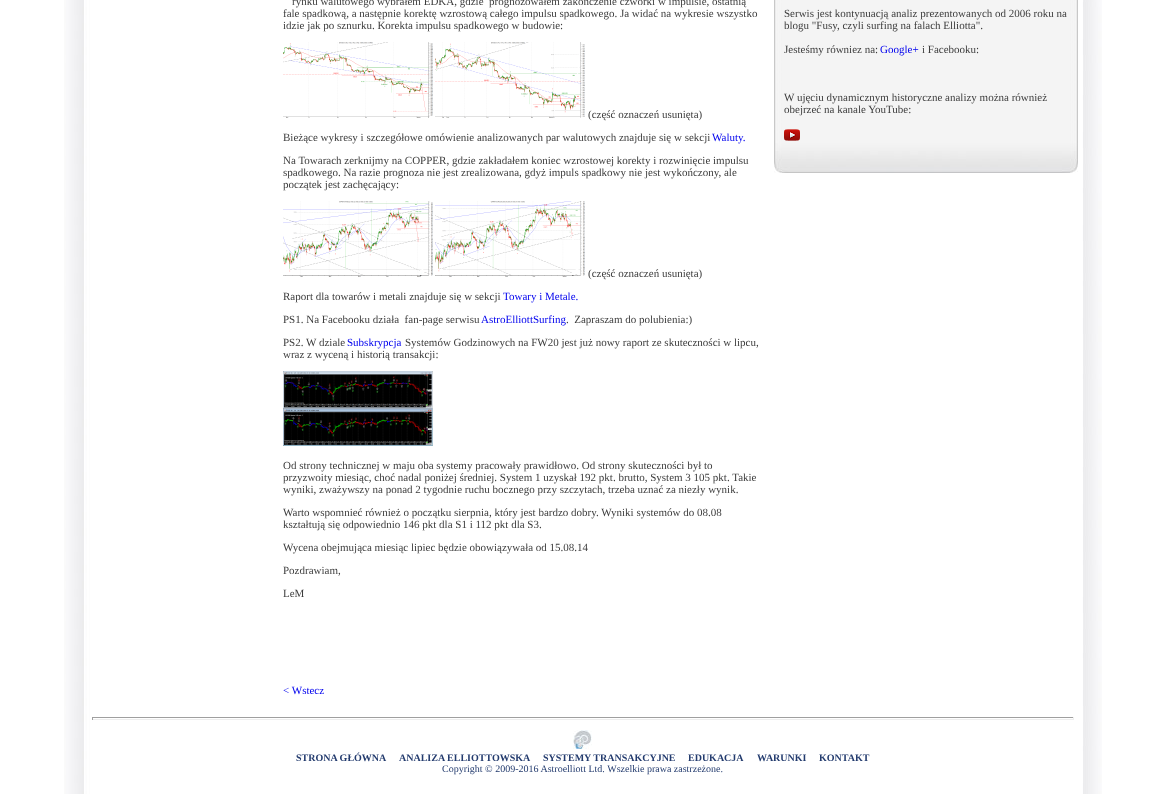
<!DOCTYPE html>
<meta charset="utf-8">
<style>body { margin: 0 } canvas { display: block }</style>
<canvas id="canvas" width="1165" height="794"></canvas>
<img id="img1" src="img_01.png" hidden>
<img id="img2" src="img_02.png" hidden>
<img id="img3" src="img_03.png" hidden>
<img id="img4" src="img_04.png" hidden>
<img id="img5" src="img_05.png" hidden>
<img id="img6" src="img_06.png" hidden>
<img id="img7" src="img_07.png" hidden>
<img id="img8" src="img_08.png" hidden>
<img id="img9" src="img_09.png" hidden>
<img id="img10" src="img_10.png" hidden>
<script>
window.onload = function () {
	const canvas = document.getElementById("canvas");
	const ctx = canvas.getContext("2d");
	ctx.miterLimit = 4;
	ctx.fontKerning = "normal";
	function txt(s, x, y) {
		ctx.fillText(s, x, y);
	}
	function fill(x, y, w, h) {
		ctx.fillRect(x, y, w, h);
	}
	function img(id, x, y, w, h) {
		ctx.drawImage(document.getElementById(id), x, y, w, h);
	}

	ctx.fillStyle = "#FFFFFF";
	fill(0, 0, 1165, 794);
	img("img1", 64, 0, 1038, 794);
	img("img2", 283, 42, 150, 76);
	img("img3", 435, 42, 150, 76);
	img("img4", 283, 201, 150, 76);
	img("img5", 435, 201, 150, 76);
	img("img6", 283, 371, 150, 75);
	img("img7", 774, 143, 304, 30);
	img("img8", 774, 0, 304, 143);
	img("img9", 784, 129, 16, 12);
	ctx.fillStyle = "#9F9F9F";
	fill(92, 717, 982, 1);
	ctx.fillStyle = "#EEEEEE";
	fill(1073, 717, 1, 3);
	fill(92, 719, 982, 1);
	ctx.fillStyle = "#9F9F9F";
	fill(92, 717, 1, 3);
	img("img10", 573, 730, 19, 19);
	ctx.font = "11px Liberation Serif";
	ctx.fillStyle = "#3D3D3D";
	txt("rynku walutowego wybrałem EDKA, gdzie  prognozowałem zakończenie czwórki w impulsie, ostatnią", 292, 5);
	txt("fale spadkową, a następnie korektę wzrostową całego impulsu spadkowego. Ja widać na wykresie wszystko", 283, 17);
	txt("idzie jak po sznurku. Korekta impulsu spadkowego w budowie:", 283, 29);
	txt("(część oznaczeń usunięta)", 588, 118);
	txt("Bieżące wykresy i szczegółowe omówienie analizowanych par walutowych znajduje się w sekcji", 283, 141);
	ctx.fillStyle = "#0000EE";
	txt("Waluty.", 712, 141);
	ctx.fillStyle = "#3D3D3D";
	txt("Na Towarach zerknijmy na COPPER, gdzie zakładałem koniec wzrostowej korekty i rozwinięcie impulsu", 283, 164);
	txt("spadkowego. Na razie prognoza nie jest zrealizowana, gdyż impuls spadkowy nie jest wykończony, ale", 283, 176);
	txt("początek jest zachęcający:", 283, 188);
	txt("(część oznaczeń usunięta)", 588, 277);
	txt("Raport dla towarów i metali znajduje się w sekcji", 283, 300);
	ctx.fillStyle = "#0000EE";
	txt("Towary i Metale.", 503, 300);
	ctx.fillStyle = "#3D3D3D";
	txt("PS1. Na Facebooku działa  fan-page serwisu", 283, 323);
	ctx.fillStyle = "#0000EE";
	txt("AstroElliottSurfing", 481, 323);
	ctx.fillStyle = "#3D3D3D";
	txt(".  Zapraszam do polubienia:)", 566, 323);
	txt("PS2. W dziale", 283, 346);
	ctx.fillStyle = "#0000EE";
	txt("Subskrypcja", 347, 346);
	ctx.fillStyle = "#3D3D3D";
	txt("Systemów Godzinowych na FW20 jest już nowy raport ze skuteczności w lipcu,", 405, 346);
	txt("wraz z wyceną i historią transakcji:", 283, 358);
	txt("Od strony technicznej w maju oba systemy pracowały prawidłowo. Od strony skuteczności był to", 283, 469);
	txt("przyzwoity miesiąc, choć nadal poniżej średniej. System 1 uzyskał 192 pkt. brutto, System 3 105 pkt. Takie", 283, 481);
	txt("wyniki, zważywszy na ponad 2 tygodnie ruchu bocznego przy szczytach, trzeba uznać za niezły wynik.", 283, 493);
	txt("Warto wspomnieć również o początku sierpnia, który jest bardzo dobry. Wyniki systemów do 08.08", 283, 516);
	txt("kształtują się odpowiednio 146 pkt dla S1 i 112 pkt dla S3.", 283, 528);
	txt("Wycena obejmująca miesiąc lipiec będzie obowiązywała od 15.08.14", 283, 551);
	txt("Pozdrawiam,", 283, 574);
	txt("LeM", 283, 597);
	ctx.fillStyle = "#0000EE";
	txt("< Wstecz", 283, 694);
	ctx.fillStyle = "#3D3D3D";
	txt("Serwis jest kontynuacją analiz prezentowanych od 2006 roku na", 784, 17);
	txt("blogu \"Fusy, czyli surfing na falach Elliotta\".", 784, 29);
	txt("Jesteśmy równiez na:", 784, 53);
	ctx.fillStyle = "#0000EE";
	txt("Google+", 880, 53);
	ctx.fillStyle = "#3D3D3D";
	txt("i Facebooku:", 922, 53);
	txt("W ujęciu dynamicznym historyczne analizy można również", 784, 101);
	txt("obejrzeć na kanale YouTube:", 784, 113);
	ctx.font = "bold 10px Liberation Serif";
	ctx.fillStyle = "#233B6E";
	txt("STRONA GŁÓWNA", 296, 761);
	txt("ANALIZA ELLIOTTOWSKA", 399, 761);
	txt("SYSTEMY TRANSAKCYJNE", 543, 761);
	txt("EDUKACJA", 688, 761);
	txt("WARUNKI", 757, 761);
	txt("KONTAKT", 819, 761);
	ctx.font = "10px Liberation Serif";
	txt("Copyright © 2009-2016 Astroelliott Ltd. Wszelkie prawa zastrzeżone.", 442, 772);
};
</script>
